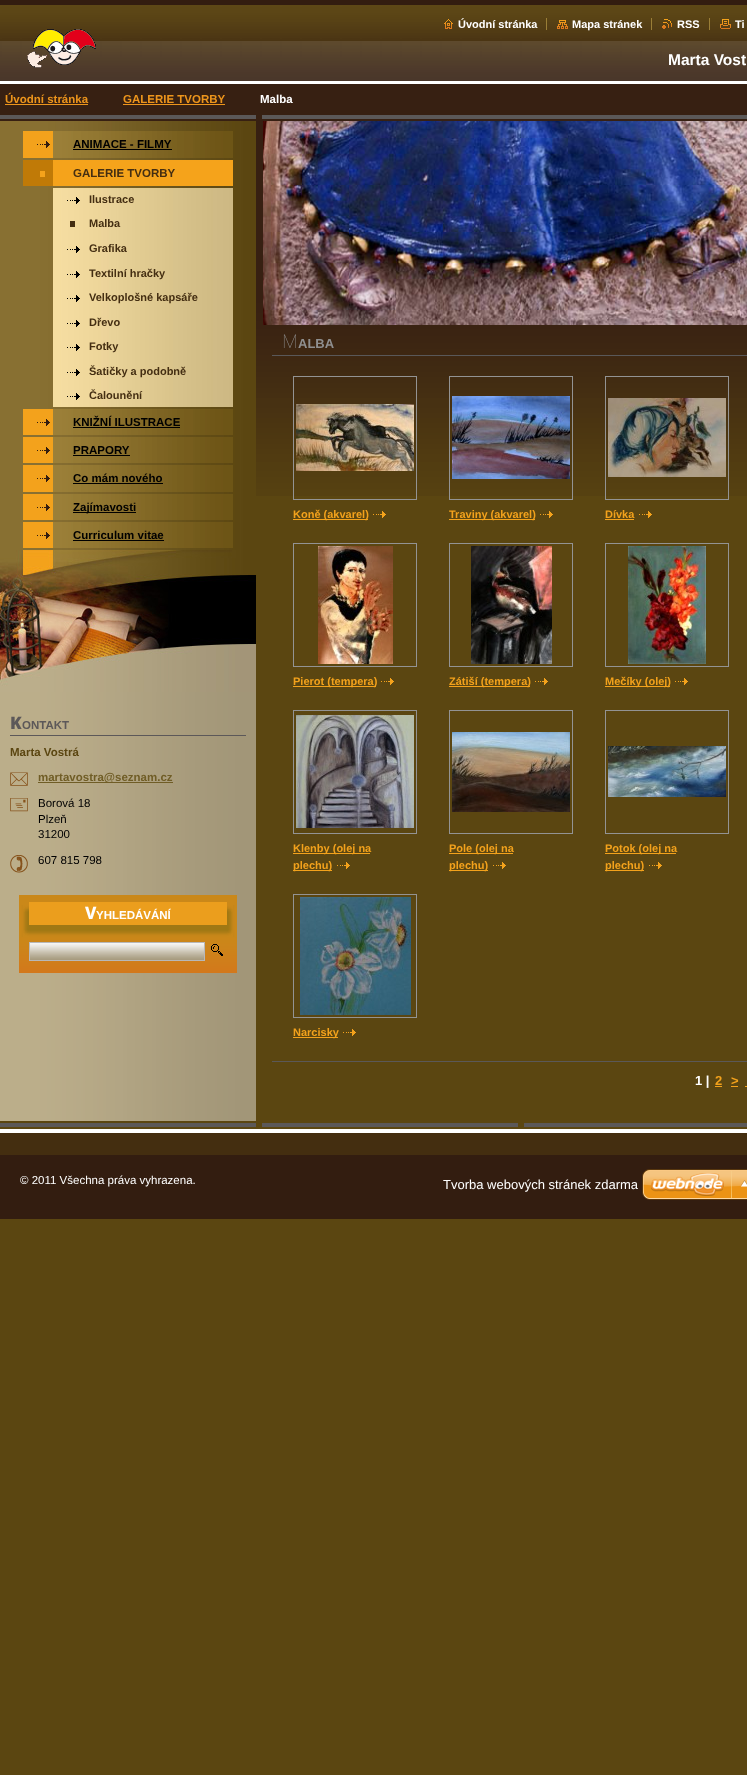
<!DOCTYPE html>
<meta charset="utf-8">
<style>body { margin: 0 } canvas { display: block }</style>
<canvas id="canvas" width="747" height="1775"></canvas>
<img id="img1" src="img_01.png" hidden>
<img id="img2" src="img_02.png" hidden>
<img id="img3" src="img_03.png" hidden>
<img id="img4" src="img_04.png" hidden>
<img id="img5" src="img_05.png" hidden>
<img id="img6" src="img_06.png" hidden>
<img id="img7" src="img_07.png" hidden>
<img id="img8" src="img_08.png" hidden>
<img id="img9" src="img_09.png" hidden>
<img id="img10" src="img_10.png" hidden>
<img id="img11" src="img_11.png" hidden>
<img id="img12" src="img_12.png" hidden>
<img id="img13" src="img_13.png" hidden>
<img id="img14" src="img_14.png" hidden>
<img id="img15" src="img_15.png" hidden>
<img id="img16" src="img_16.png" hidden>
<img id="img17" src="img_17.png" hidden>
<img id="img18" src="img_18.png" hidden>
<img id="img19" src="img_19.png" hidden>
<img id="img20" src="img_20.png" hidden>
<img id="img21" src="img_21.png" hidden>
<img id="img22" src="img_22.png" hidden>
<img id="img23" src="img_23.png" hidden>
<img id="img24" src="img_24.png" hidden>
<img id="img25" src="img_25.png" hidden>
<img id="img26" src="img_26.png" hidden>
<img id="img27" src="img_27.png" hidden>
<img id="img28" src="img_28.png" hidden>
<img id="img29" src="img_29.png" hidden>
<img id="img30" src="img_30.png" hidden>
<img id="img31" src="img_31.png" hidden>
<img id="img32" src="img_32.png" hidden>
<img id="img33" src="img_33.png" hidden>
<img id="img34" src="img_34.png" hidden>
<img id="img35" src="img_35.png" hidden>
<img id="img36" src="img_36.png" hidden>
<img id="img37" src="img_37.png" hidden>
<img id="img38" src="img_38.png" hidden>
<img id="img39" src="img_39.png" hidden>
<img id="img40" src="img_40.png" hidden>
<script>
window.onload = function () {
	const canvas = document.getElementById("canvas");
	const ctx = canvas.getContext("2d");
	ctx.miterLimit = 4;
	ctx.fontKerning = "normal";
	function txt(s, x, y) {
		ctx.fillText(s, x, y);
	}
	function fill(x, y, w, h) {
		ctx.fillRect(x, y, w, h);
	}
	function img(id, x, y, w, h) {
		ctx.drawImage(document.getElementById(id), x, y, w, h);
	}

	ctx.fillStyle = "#5B4611";
	fill(0, 0, 747, 1775);
	img("img1", 256, 115, 491, 381);
	img("img2", 0, 692, 256, 429);
	img("img3", 0, 0, 747, 81);
	ctx.fillStyle = "#FFFFFF";
	fill(0, 81, 747, 3);
	img("img4", 444, 19, 9, 10);
	img("img5", 557, 20, 11, 9);
	ctx.fillStyle = "#9A7E37";
	fill(546, 18, 1, 12);
	img("img6", 662, 19, 10, 10);
	fill(651, 18, 1, 12);
	img("img7", 720, 19, 11, 10);
	fill(709, 18, 1, 12);
	img("img8", 27, 29, 69, 39);
	ctx.fillStyle = "#372012";
	fill(0, 84, 747, 31);
	ctx.fillStyle = "#ED951C";
	fill(5, 104, 83, 1);
	fill(123, 104, 102, 1);
	img("img9", 0, 115, 256, 6);
	img("img10", 0, 121, 256, 429);
	img("img11", 23, 131, 210, 27);
	img("img12", 37, 141, 13, 7);
	ctx.fillStyle = "#000000";
	fill(73, 149, 99, 1);
	img("img13", 23, 160, 210, 26);
	ctx.fillStyle = "#F5A31B";
	fill(40, 171, 5, 6);
	img("img14", 53, 188, 180, 219);
	img("img15", 67, 197, 13, 7);
	ctx.fillStyle = "#442E12";
	fill(70, 221, 5, 6);
	img("img15", 67, 246, 13, 7);
	img("img15", 67, 271, 13, 7);
	img("img15", 67, 295, 13, 7);
	img("img15", 67, 320, 13, 7);
	img("img15", 67, 344, 13, 7);
	img("img15", 67, 369, 13, 7);
	img("img15", 67, 393, 13, 7);
	img("img16", 23, 409, 210, 26);
	img("img12", 37, 419, 13, 7);
	ctx.fillStyle = "#000000";
	fill(73, 427, 107, 1);
	img("img16", 23, 437, 210, 26);
	img("img12", 37, 447, 13, 7);
	fill(73, 455, 57, 1);
	img("img11", 23, 465, 210, 27);
	img("img12", 37, 475, 13, 7);
	fill(73, 483, 90, 1);
	img("img16", 23, 494, 210, 26);
	img("img12", 37, 504, 13, 7);
	fill(73, 512, 63, 1);
	img("img16", 23, 522, 210, 26);
	img("img12", 37, 532, 13, 7);
	fill(73, 540, 91, 1);
	img("img17", 0, 550, 256, 142);
	ctx.fillStyle = "#5C5859";
	fill(10, 735, 236, 1);
	img("img18", 10, 772, 18, 14);
	ctx.fillStyle = "#705D26";
	fill(38, 782, 135, 1);
	img("img19", 10, 798, 18, 14);
	img("img20", 10, 855, 18, 18);
	img("img21", 19, 895, 218, 78);
	ctx.fillStyle = "#A07814";
	fill(29, 925, 198, 5);
	img("img22", 19, 905, 218, 32);
	img("img23", 23, 905, 210, 7);
	ctx.fillStyle = "#EB9E1D";
	fill(29, 902, 198, 23);
	img("img24", 23, 930, 210, 7);
	img("img25", 30, 943, 174, 17);
	ctx.strokeStyle = "#B8B8B8";
	ctx.strokeRect(29.5, 942.5, 175, 18);
	img("img26", 211, 944, 12, 12);
	ctx.fillStyle = "#5B5858";
	fill(262, 115, 485, 4);
	img("img27", 263, 121, 484, 204);
	ctx.fillStyle = "#5A5859";
	fill(272, 355, 475, 1);
	ctx.strokeStyle = "#939393";
	ctx.strokeRect(293.5, 376.5, 123, 123);
	img("img28", 296, 404, 118, 67);
	ctx.fillStyle = "#F3A21C";
	fill(293, 519, 75, 1);
	img("img29", 373, 511, 13, 7);
	ctx.strokeRect(449.5, 376.5, 123, 123);
	img("img30", 452, 396, 118, 83);
	fill(449, 519, 86, 1);
	img("img29", 540, 511, 13, 7);
	ctx.strokeRect(605.5, 376.5, 123, 123);
	img("img31", 608, 398, 118, 79);
	fill(605, 519, 29, 1);
	img("img29", 639, 511, 13, 7);
	ctx.strokeRect(293.5, 543.5, 123, 123);
	img("img32", 318, 546, 75, 118);
	fill(293, 686, 83, 1);
	img("img29", 381, 678, 13, 7);
	ctx.strokeRect(449.5, 543.5, 123, 123);
	img("img33", 471, 546, 81, 118);
	fill(449, 686, 81, 1);
	img("img29", 535, 678, 13, 7);
	ctx.strokeRect(605.5, 543.5, 123, 123);
	img("img34", 628, 546, 78, 118);
	fill(605, 686, 65, 1);
	img("img29", 675, 678, 13, 7);
	ctx.strokeRect(293.5, 710.5, 123, 123);
	img("img35", 296, 715, 118, 113);
	fill(293, 853, 77, 1);
	fill(293, 870, 39, 1);
	img("img29", 337, 862, 13, 7);
	ctx.strokeRect(449.5, 710.5, 123, 123);
	img("img36", 452, 732, 118, 80);
	fill(449, 853, 64, 1);
	fill(449, 870, 39, 1);
	img("img29", 493, 862, 13, 7);
	ctx.strokeRect(605.5, 710.5, 123, 123);
	img("img37", 608, 746, 118, 51);
	fill(605, 853, 71, 1);
	fill(605, 870, 39, 1);
	img("img29", 649, 862, 13, 7);
	ctx.strokeRect(293.5, 894.5, 123, 123);
	img("img38", 300, 897, 111, 118);
	fill(293, 1037, 45, 1);
	img("img29", 343, 1029, 13, 7);
	ctx.fillStyle = "#5B5858";
	fill(272, 1061, 475, 1);
	ctx.fillStyle = "#F3A21C";
	fill(715, 1086, 7, 1);
	fill(731, 1086, 7, 1);
	fill(745, 1086, 2, 1);
	ctx.fillStyle = "#331D10";
	fill(0, 1155, 747, 64);
	img("img39", 0, 1121, 747, 12);
	ctx.fillStyle = "#442E10";
	fill(0, 1133, 747, 22);
	img("img40", 642, 1169, 105, 31);
	ctx.font = "bold 11px Liberation Sans";
	ctx.fillStyle = "#FFFFFF";
	txt("Úvodní stránka", 458, 28);
	txt("Mapa stránek", 572, 28);
	txt("RSS", 677, 28);
	txt("Ti", 735, 28);
	ctx.font = "bold 15.5px Liberation Sans";
	txt("Marta Vost", 668, 65);
	ctx.font = "bold 11.5px Liberation Sans";
	ctx.fillStyle = "#ED951C";
	txt("Úvodní stránka", 5, 103);
	txt("GALERIE TVORBY", 123, 103);
	ctx.fillStyle = "#FFFFFF";
	txt("Malba", 260, 103);
	ctx.fillStyle = "#000000";
	txt("ANIMACE - FILMY", 73, 148);
	ctx.fillStyle = "#442E12";
	txt("GALERIE TVORBY", 73, 177);
	ctx.font = "bold 11px Liberation Sans";
	txt("Ilustrace", 89, 203);
	txt("Malba", 89, 227);
	txt("Grafika", 89, 252);
	txt("Textilní hračky", 89, 277);
	txt("Velkoplošné kapsáře", 89, 301);
	txt("Dřevo", 89, 326);
	txt("Fotky", 89, 350);
	txt("Šatičky a podobně", 89, 375);
	txt("Čalounění", 89, 399);
	ctx.font = "bold 11.5px Liberation Sans";
	ctx.fillStyle = "#000000";
	txt("KNIŽNÍ ILUSTRACE", 73, 426);
	txt("PRAPORY", 73, 454);
	txt("Co mám nového", 73, 482);
	txt("Zajímavosti", 73, 511);
	txt("Curriculum vitae", 73, 539);
	ctx.font = "900 17px Noto Sans";
	ctx.fillStyle = "#5C5859";
	txt("K", 10, 729);
	ctx.font = "bold 11.5px Liberation Sans";
	txt("ONTAKT", 22, 729);
	ctx.fillStyle = "#5B4611";
	txt("Marta Vostrá", 10, 756);
	ctx.fillStyle = "#705D26";
	txt("martavostra@seznam.cz", 38, 781);
	ctx.font = "11.5px Liberation Sans";
	ctx.fillStyle = "#000000";
	txt("Borová 18", 38, 807);
	txt("Plzeň", 38, 823);
	txt("31200", 38, 838);
	txt("607 815 798", 38, 864);
	ctx.font = "800 17px Noto Sans";
	ctx.fillStyle = "#FFFFFF";
	txt("V", 85, 919);
	ctx.font = "bold 11.5px Liberation Sans";
	txt("YHLEDÁVÁNÍ", 96, 919);
	ctx.font = "100 19px Noto Sans";
	ctx.fillStyle = "#8F8F8F";
	txt("M", 282, 348);
	ctx.font = "bold 13px Liberation Sans";
	txt("ALBA", 298, 348);
	ctx.font = "bold 11px Liberation Sans";
	ctx.fillStyle = "#F3A21C";
	txt("Koně (akvarel)", 293, 518);
	txt("Traviny (akvarel)", 449, 518);
	txt("Dívka", 605, 518);
	txt("Pierot (tempera)", 293, 685);
	txt("Zátiší (tempera)", 449, 685);
	txt("Mečíky (olej)", 605, 685);
	txt("Klenby (olej na", 293, 852);
	txt("plechu)", 293, 869);
	txt("Pole (olej na", 449, 852);
	txt("plechu)", 449, 869);
	txt("Potok (olej na", 605, 852);
	txt("plechu)", 605, 869);
	txt("Narcisky", 293, 1036);
	ctx.font = "bold 13px Liberation Sans";
	ctx.fillStyle = "#FFFFFF";
	txt("1 |", 695, 1085);
	ctx.fillStyle = "#F3A21C";
	txt("2", 715, 1085);
	txt(">", 731, 1085);
	ctx.font = "11.5px Liberation Sans";
	ctx.fillStyle = "#FFFFFF";
	txt("© 2011 Všechna práva vyhrazena.", 20, 1184);
	ctx.font = "13px Liberation Sans";
	txt("Tvorba webových stránek zdarma", 443, 1189);
};
</script>
